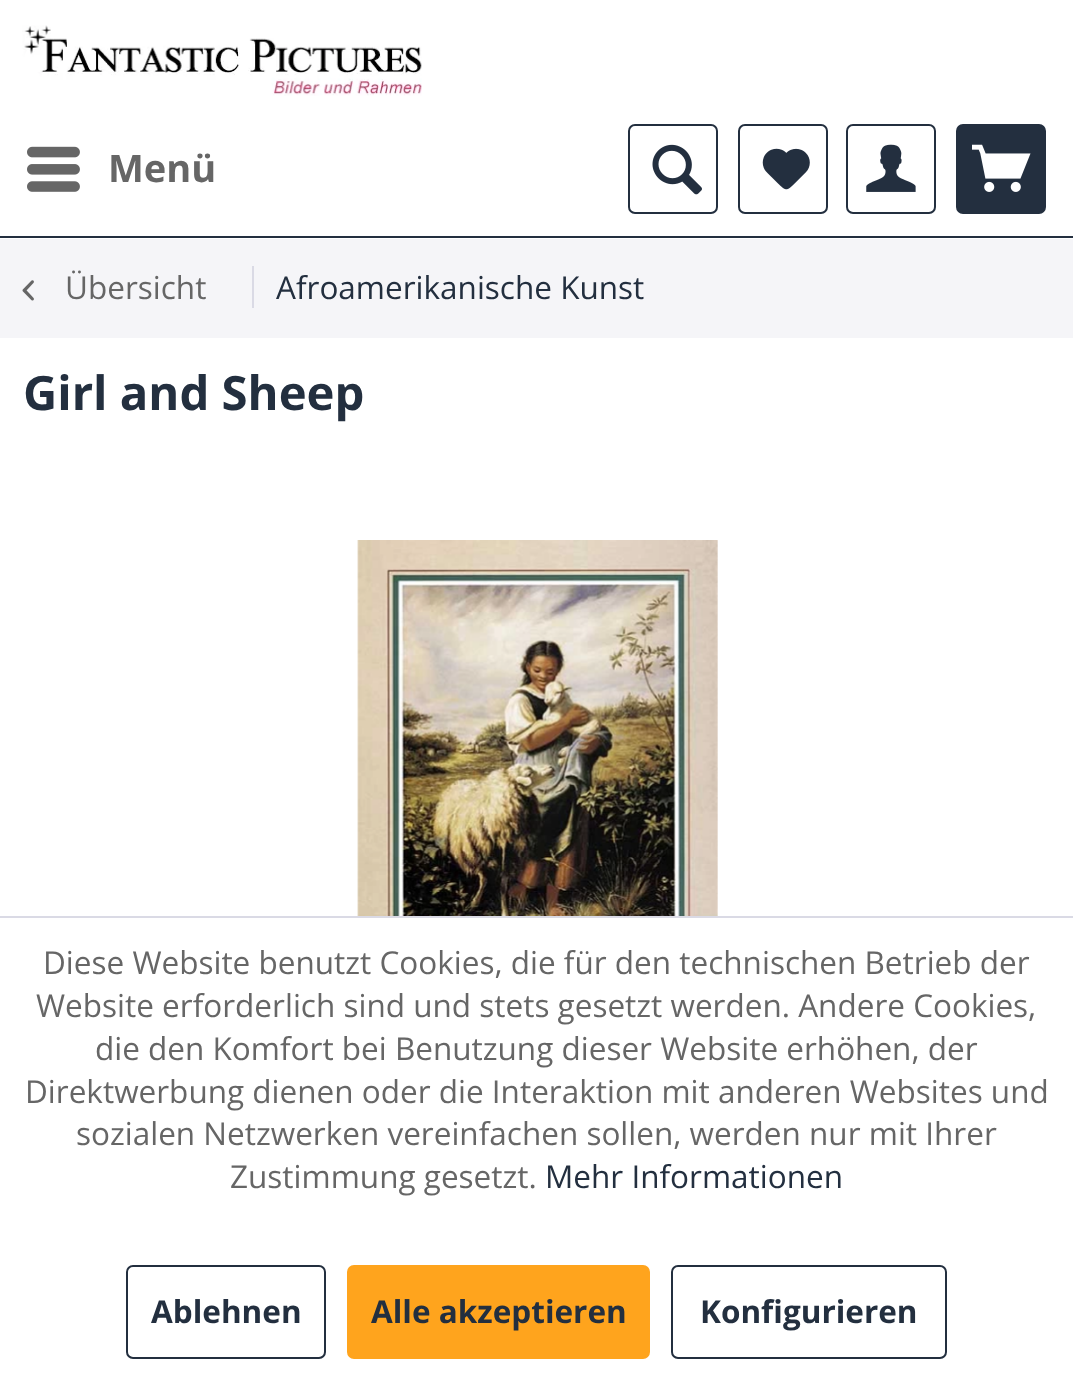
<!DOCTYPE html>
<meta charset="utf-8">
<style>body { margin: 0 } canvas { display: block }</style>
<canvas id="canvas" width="1073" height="1380"></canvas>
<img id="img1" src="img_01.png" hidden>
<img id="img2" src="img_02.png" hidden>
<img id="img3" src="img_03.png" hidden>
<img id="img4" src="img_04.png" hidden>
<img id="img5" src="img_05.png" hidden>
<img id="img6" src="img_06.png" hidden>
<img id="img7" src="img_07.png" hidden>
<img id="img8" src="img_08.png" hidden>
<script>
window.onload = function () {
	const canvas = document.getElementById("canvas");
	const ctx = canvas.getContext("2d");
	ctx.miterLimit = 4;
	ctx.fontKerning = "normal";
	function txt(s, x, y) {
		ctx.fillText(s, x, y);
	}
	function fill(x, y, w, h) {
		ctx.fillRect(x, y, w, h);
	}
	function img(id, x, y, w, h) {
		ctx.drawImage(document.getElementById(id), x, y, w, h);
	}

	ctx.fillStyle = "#FFFFFF";
	fill(0, 0, 1073, 1380);
	ctx.fillStyle = "#232F3F";
	fill(0, 236, 1073, 2);
	img("img1", 22, 25, 400, 71);
	img("img2", 27, 146, 53, 46);
	ctx.beginPath();
	ctx.roundRect(629, 125, 88, 88, 6);
	ctx.strokeStyle = "#232F3F";
	ctx.lineWidth = 2;
	ctx.stroke();
	img("img3", 652, 144, 50, 51);
	ctx.beginPath();
	ctx.roundRect(739, 125, 88, 88, 6);
	ctx.stroke();
	img("img4", 762, 148, 48, 42);
	ctx.beginPath();
	ctx.roundRect(847, 125, 88, 88, 6);
	ctx.stroke();
	img("img5", 866, 144, 50, 48);
	ctx.beginPath();
	ctx.roundRect(957, 125, 88, 88, 6);
	ctx.fill();
	ctx.stroke();
	img("img6", 972, 144, 59, 48);
	ctx.fillStyle = "#F5F5F8";
	fill(0, 239, 1073, 99);
	img("img7", 22, 280, 12, 21);
	ctx.fillStyle = "#DADAE5";
	fill(252, 266, 2, 42);
	img("img8", 357, 540, 361, 376);
	fill(0, 916, 1073, 2);
	ctx.beginPath();
	ctx.roundRect(127, 1266, 198, 92, 6);
	ctx.stroke();
	ctx.fillStyle = "#FFA41D";
	ctx.beginPath();
	ctx.roundRect(348, 1266, 301, 92, 6);
	ctx.fill();
	ctx.strokeStyle = "#FFA41D";
	ctx.stroke();
	ctx.beginPath();
	ctx.roundRect(672, 1266, 274, 92, 6);
	ctx.strokeStyle = "#232F3F";
	ctx.stroke();
	ctx.font = "bold 38px Open Sans";
	ctx.fillStyle = "#666666";
	txt("Menü", 108, 182);
	ctx.font = "31.5px Open Sans";
	txt("Übersicht", 65, 299);
	ctx.fillStyle = "#232F3F";
	txt("Afroamerikanische Kunst", 276, 299);
	ctx.font = "bold 47.25px Open Sans";
	txt("Girl and Sheep", 23, 410);
	ctx.font = "31.5px Open Sans";
	ctx.fillStyle = "#666666";
	txt("Diese Website benutzt Cookies, die für den technischen Betrieb der", 43, 974);
	txt("Website erforderlich sind und stets gesetzt werden. Andere Cookies,", 36, 1017);
	txt("die den Komfort bei Benutzung dieser Website erhöhen, der", 95, 1060);
	txt("Direktwerbung dienen oder die Interaktion mit anderen Websites und", 25, 1103);
	txt("sozialen Netzwerken vereinfachen sollen, werden nur mit Ihrer", 76, 1145);
	txt("Zustimmung gesetzt.", 230, 1188);
	ctx.fillStyle = "#232F3F";
	txt("Mehr Informationen", 545, 1188);
	ctx.font = "bold 31.5px Open Sans";
	txt("Ablehnen", 151, 1323);
	txt("Alle akzeptieren", 371, 1323);
	txt("Konfigurieren", 700, 1323);
};
</script>
